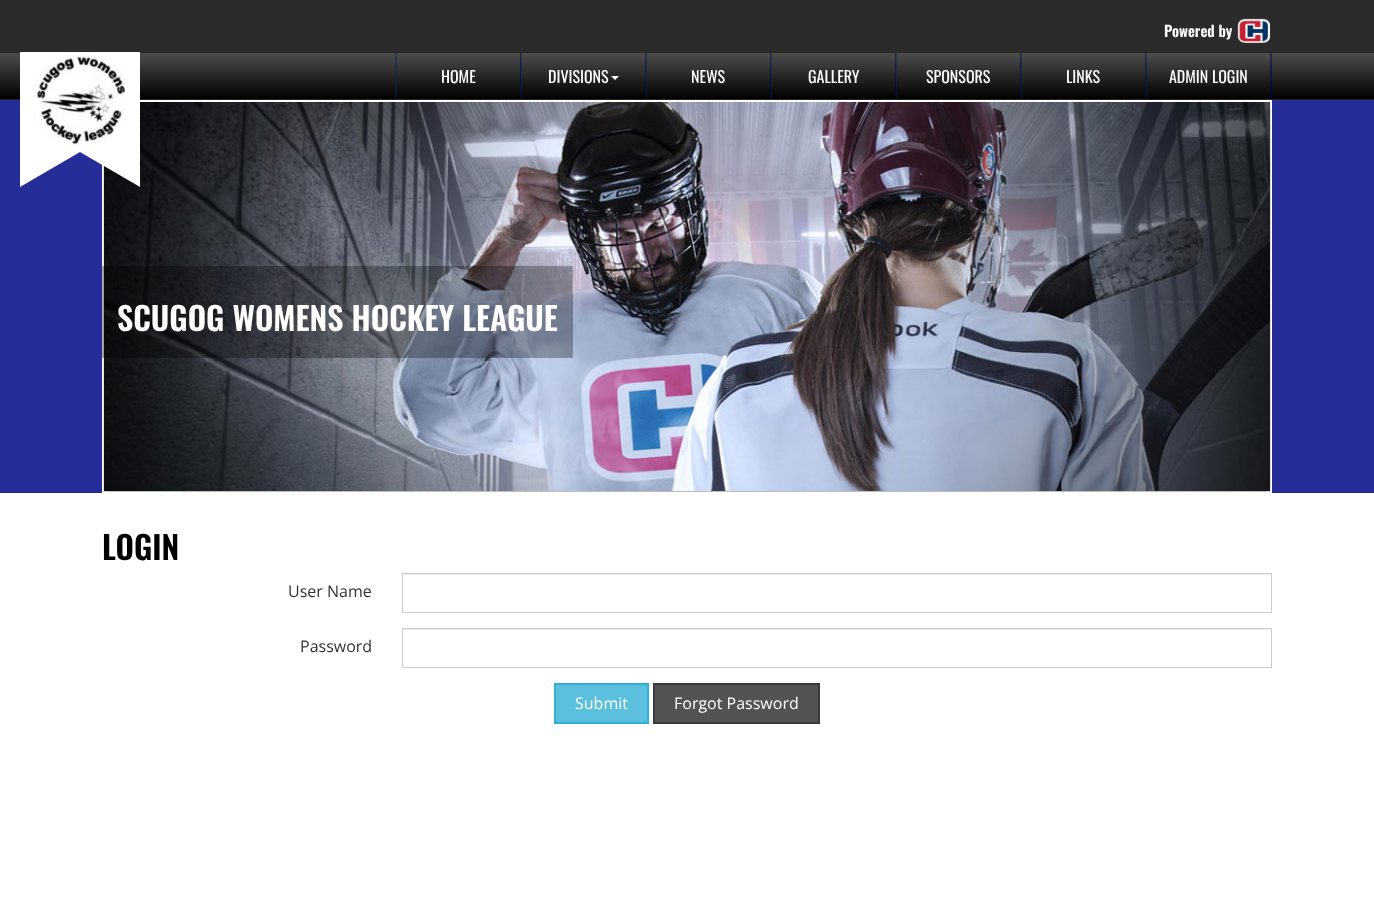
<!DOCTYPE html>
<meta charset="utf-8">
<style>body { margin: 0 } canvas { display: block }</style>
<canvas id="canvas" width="1374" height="920"></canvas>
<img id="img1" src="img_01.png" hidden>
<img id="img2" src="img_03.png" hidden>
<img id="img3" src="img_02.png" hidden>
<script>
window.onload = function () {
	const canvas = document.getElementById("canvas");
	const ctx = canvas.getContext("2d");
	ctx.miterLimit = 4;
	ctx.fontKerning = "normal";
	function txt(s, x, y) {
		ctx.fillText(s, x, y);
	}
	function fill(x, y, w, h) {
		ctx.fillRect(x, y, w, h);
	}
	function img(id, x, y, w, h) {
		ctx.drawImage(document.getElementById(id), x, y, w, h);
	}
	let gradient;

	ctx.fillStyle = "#FFFFFF";
	fill(0, 0, 1374, 920);
	ctx.fillStyle = "#2B2B2B";
	fill(0, 0, 1374, 52);
	img("img1", 1237, 18, 34, 25);
	gradient = ctx.createLinearGradient(687, 53, 687, 99);
	gradient.addColorStop(0, "#4D4D4D");
	gradient.addColorStop(1, "#000000");
	ctx.fillStyle = gradient;
	fill(0, 53, 1374, 46);
	ctx.fillStyle = "#2D2821";
	fill(0, 52, 1374, 1);
	ctx.fillStyle = "#27221B";
	fill(0, 99, 1374, 1);
	ctx.fillStyle = "#262D99";
	fill(0, 100, 1374, 393);
	ctx.strokeStyle = "#FFFFFF";
	ctx.lineWidth = 2;
	ctx.strokeRect(103, 101, 1168, 391);
	img("img2", 103, 101, 1168, 391);
	ctx.fillStyle = "#FFFFFF";
	fill(20, 52, 120, 100);
	ctx.beginPath();
	ctx.moveTo(140, 52);
	ctx.lineTo(140, 187);
	ctx.lineTo(80, 152);
	ctx.closePath();
	ctx.fill();
	ctx.beginPath();
	ctx.moveTo(20, 187);
	ctx.lineTo(20, 52);
	ctx.lineTo(80, 152);
	ctx.closePath();
	ctx.fill();
	img("img3", 35, 55, 90, 90);
	gradient = ctx.createLinearGradient(687, 53, 687, 99);
	gradient.addColorStop(0, "#273A59");
	gradient.addColorStop(1, "#001332");
	ctx.fillStyle = gradient;
	fill(1146, 53, 1, 46);
	gradient = ctx.createLinearGradient(687, 53, 687, 99);
	gradient.addColorStop(0, "#272752");
	gradient.addColorStop(1, "#00002C");
	ctx.fillStyle = gradient;
	fill(1270, 53, 1, 46);
	gradient = ctx.createLinearGradient(687, 53, 687, 99);
	gradient.addColorStop(0, "#273A59");
	gradient.addColorStop(1, "#001332");
	ctx.fillStyle = gradient;
	fill(1021, 53, 1, 46);
	gradient = ctx.createLinearGradient(687, 53, 687, 99);
	gradient.addColorStop(0, "#272752");
	gradient.addColorStop(1, "#00002C");
	ctx.fillStyle = gradient;
	fill(1145, 53, 1, 46);
	gradient = ctx.createLinearGradient(687, 53, 687, 99);
	gradient.addColorStop(0, "#273A59");
	gradient.addColorStop(1, "#001332");
	ctx.fillStyle = gradient;
	fill(896, 53, 1, 46);
	gradient = ctx.createLinearGradient(687, 53, 687, 99);
	gradient.addColorStop(0, "#272752");
	gradient.addColorStop(1, "#00002C");
	ctx.fillStyle = gradient;
	fill(1020, 53, 1, 46);
	gradient = ctx.createLinearGradient(687, 53, 687, 99);
	gradient.addColorStop(0, "#273A59");
	gradient.addColorStop(1, "#001332");
	ctx.fillStyle = gradient;
	fill(771, 53, 1, 46);
	gradient = ctx.createLinearGradient(687, 53, 687, 99);
	gradient.addColorStop(0, "#272752");
	gradient.addColorStop(1, "#00002C");
	ctx.fillStyle = gradient;
	fill(895, 53, 1, 46);
	gradient = ctx.createLinearGradient(687, 53, 687, 99);
	gradient.addColorStop(0, "#273A59");
	gradient.addColorStop(1, "#001332");
	ctx.fillStyle = gradient;
	fill(646, 53, 1, 46);
	gradient = ctx.createLinearGradient(687, 53, 687, 99);
	gradient.addColorStop(0, "#272752");
	gradient.addColorStop(1, "#00002C");
	ctx.fillStyle = gradient;
	fill(770, 53, 1, 46);
	gradient = ctx.createLinearGradient(687, 53, 687, 99);
	gradient.addColorStop(0, "#273A59");
	gradient.addColorStop(1, "#001332");
	ctx.fillStyle = gradient;
	fill(521, 53, 1, 46);
	gradient = ctx.createLinearGradient(687, 53, 687, 99);
	gradient.addColorStop(0, "#272752");
	gradient.addColorStop(1, "#00002C");
	ctx.fillStyle = gradient;
	fill(645, 53, 1, 46);
	gradient = ctx.createLinearGradient(687, 53, 687, 99);
	gradient.addColorStop(0, "#273A59");
	gradient.addColorStop(1, "#001332");
	ctx.fillStyle = gradient;
	fill(396, 53, 1, 46);
	gradient = ctx.createLinearGradient(687, 53, 687, 99);
	gradient.addColorStop(0, "#272752");
	gradient.addColorStop(1, "#00002C");
	ctx.fillStyle = gradient;
	fill(520, 53, 1, 46);
	gradient = ctx.createLinearGradient(687, 53, 687, 99);
	gradient.addColorStop(0, "#273A59");
	gradient.addColorStop(1, "#001332");
	ctx.fillStyle = gradient;
	fill(395, 53, 1, 46);
	gradient = ctx.createLinearGradient(687, 53, 687, 99);
	gradient.addColorStop(0, "#272752");
	gradient.addColorStop(1, "#00002C");
	ctx.fillStyle = gradient;
	fill(1271, 53, 1, 46);
	ctx.fillStyle = "#FFFFFF";
	ctx.beginPath();
	ctx.moveTo(611, 76);
	ctx.lineTo(619, 76);
	ctx.lineTo(615, 80);
	ctx.closePath();
	ctx.fill();
	ctx.fillStyle = "rgba(0, 0, 0, 0.3)";
	fill(102, 266, 471, 92);
	ctx.fillStyle = "#ECECEC";
	fill(403, 574, 868, 1);
	ctx.strokeStyle = "#CCCCCC";
	ctx.lineWidth = 1;
	ctx.strokeRect(402.5, 573.5, 869, 39);
	fill(403, 629, 868, 1);
	ctx.strokeRect(402.5, 628.5, 869, 39);
	ctx.fillStyle = "#5BC0DE";
	ctx.beginPath();
	ctx.rect(555, 684, 93, 39);
	ctx.fill();
	ctx.strokeStyle = "#31B0D5";
	ctx.lineWidth = 2;
	ctx.stroke();
	ctx.fillStyle = "#535353";
	ctx.beginPath();
	ctx.rect(654, 684, 165, 39);
	ctx.fill();
	ctx.strokeStyle = "#3A3A3A";
	ctx.stroke();
	ctx.font = "600 15px Oswald";
	ctx.fillStyle = "#FFFFFF";
	txt("Powered by", 1164, 37);
	ctx.font = "16px Oswald";
	txt("HOME", 441, 83);
	txt("DIVISIONS", 548, 83);
	txt("NEWS", 691, 83);
	txt("GALLERY", 808, 83);
	txt("SPONSORS", 926, 83);
	txt("LINKS", 1066, 83);
	txt("ADMIN LOGIN", 1169, 83);
	ctx.font = "600 32px Oswald";
	txt("SCUGOG WOMENS HOCKEY LEAGUE", 117, 331);
	ctx.fillStyle = "#000000";
	txt("LOGIN", 102, 560);
	ctx.font = "16px Open Sans";
	ctx.fillStyle = "#333333";
	txt("User Name", 288, 597);
	txt("Password", 300, 652);
	ctx.fillStyle = "#FFFFFF";
	txt("Submit", 575, 709);
	txt("Forgot Password", 674, 709);
};
</script>
